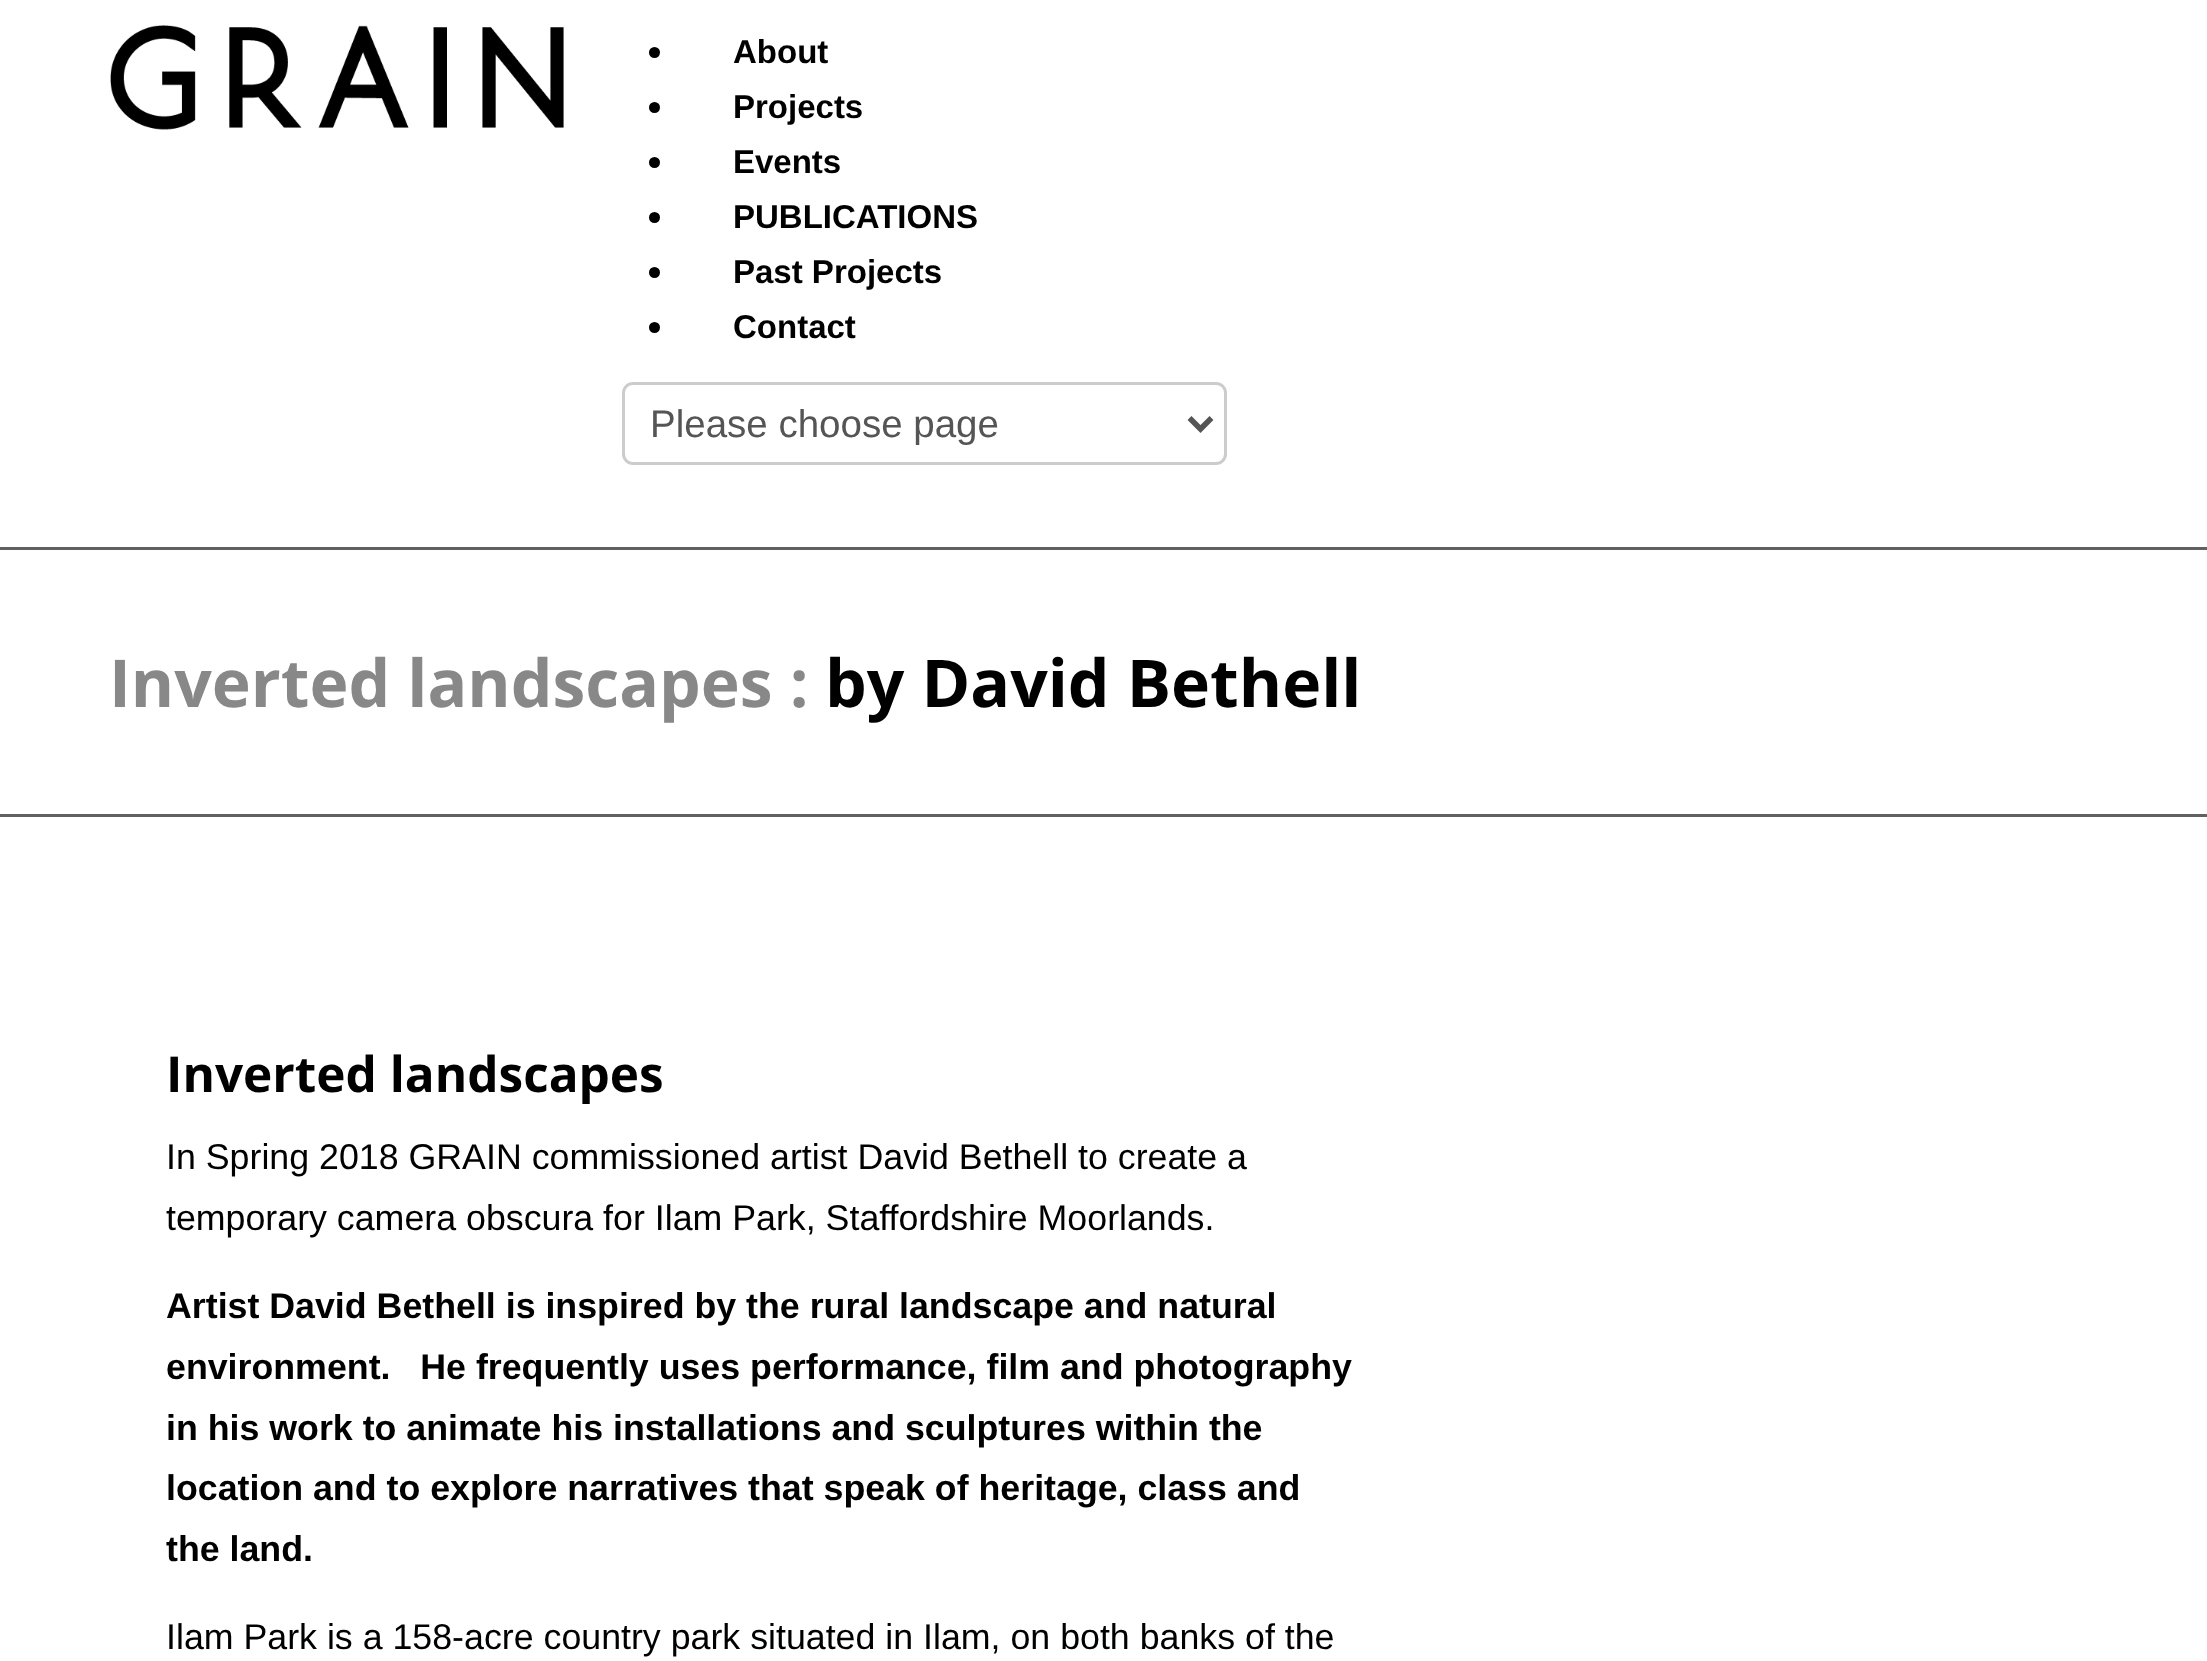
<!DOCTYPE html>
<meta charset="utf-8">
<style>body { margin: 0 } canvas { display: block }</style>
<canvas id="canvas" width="2207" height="1661"></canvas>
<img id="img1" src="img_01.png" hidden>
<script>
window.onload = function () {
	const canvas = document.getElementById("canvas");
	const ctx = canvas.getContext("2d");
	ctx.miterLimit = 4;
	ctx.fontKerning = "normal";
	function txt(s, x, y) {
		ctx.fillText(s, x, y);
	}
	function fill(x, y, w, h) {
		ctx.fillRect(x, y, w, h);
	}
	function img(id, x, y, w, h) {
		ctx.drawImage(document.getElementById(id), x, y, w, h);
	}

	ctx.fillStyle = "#FFFFFF";
	fill(0, 0, 2207, 1661);
	img("img1", 110, 25, 454, 105);
	ctx.fillStyle = "#000000";
	ctx.beginPath();
	ctx.arc(654.5, 52.5, 5.5, 0, Math.PI * 2);
	ctx.fill();
	ctx.beginPath();
	ctx.arc(654.5, 107.5, 5.5, 0, Math.PI * 2);
	ctx.fill();
	ctx.beginPath();
	ctx.arc(654.5, 162.5, 5.5, 0, Math.PI * 2);
	ctx.fill();
	ctx.beginPath();
	ctx.arc(654.5, 217.5, 5.5, 0, Math.PI * 2);
	ctx.fill();
	ctx.beginPath();
	ctx.arc(654.5, 272.5, 5.5, 0, Math.PI * 2);
	ctx.fill();
	ctx.beginPath();
	ctx.arc(654.5, 327.5, 5.5, 0, Math.PI * 2);
	ctx.fill();
	ctx.beginPath();
	ctx.roundRect(623.5, 383.5, 602, 80, 9.5);
	ctx.strokeStyle = "#CCCCCC";
	ctx.lineWidth = 3;
	ctx.stroke();
	ctx.beginPath();
	ctx.moveTo(1189.5, 418);
	ctx.lineTo(1200.5, 429);
	ctx.lineTo(1211.5, 418);
	ctx.strokeStyle = "#555555";
	ctx.lineWidth = 5.5;
	ctx.stroke();
	ctx.fillStyle = "#616161";
	fill(0, 547, 2207, 3);
	fill(0, 814, 2207, 3);
	ctx.font = "bold 33px Liberation Sans";
	ctx.fillStyle = "#000000";
	txt("About", 733, 63);
	txt("Projects", 733, 118);
	txt("Events", 733, 173);
	txt("PUBLICATIONS", 733, 228);
	txt("Past Projects", 733, 283);
	txt("Contact", 733, 338);
	ctx.font = "38.5px Liberation Sans";
	ctx.fillStyle = "#555555";
	txt("Please choose page", 650, 437);
	ctx.font = "bold 66px Open Sans";
	ctx.fillStyle = "#888888";
	txt("Inverted landscapes :", 109, 707);
	ctx.fillStyle = "#000000";
	txt("by David Bethell", 825, 707);
	ctx.font = "bold 49.5px Open Sans";
	txt("Inverted landscapes", 166, 1092);
	ctx.font = "35.75px Liberation Sans";
	txt("In Spring 2018 GRAIN commissioned artist David Bethell to create a", 166, 1169);
	txt("temporary camera obscura for Ilam Park, Staffordshire Moorlands.", 166, 1230);
	ctx.font = "bold 35.75px Liberation Sans";
	txt("Artist David Bethell is inspired by the rural landscape and natural", 166, 1318);
	txt("environment.   He frequently uses performance, film and photography", 166, 1379);
	txt("in his work to animate his installations and sculptures within the", 166, 1440);
	txt("location and to explore narratives that speak of heritage, class and", 166, 1500);
	txt("the land.", 166, 1561);
	ctx.font = "35.75px Liberation Sans";
	txt("Ilam Park is a 158-acre country park situated in Ilam, on both banks of the", 166, 1649);
};
</script>
